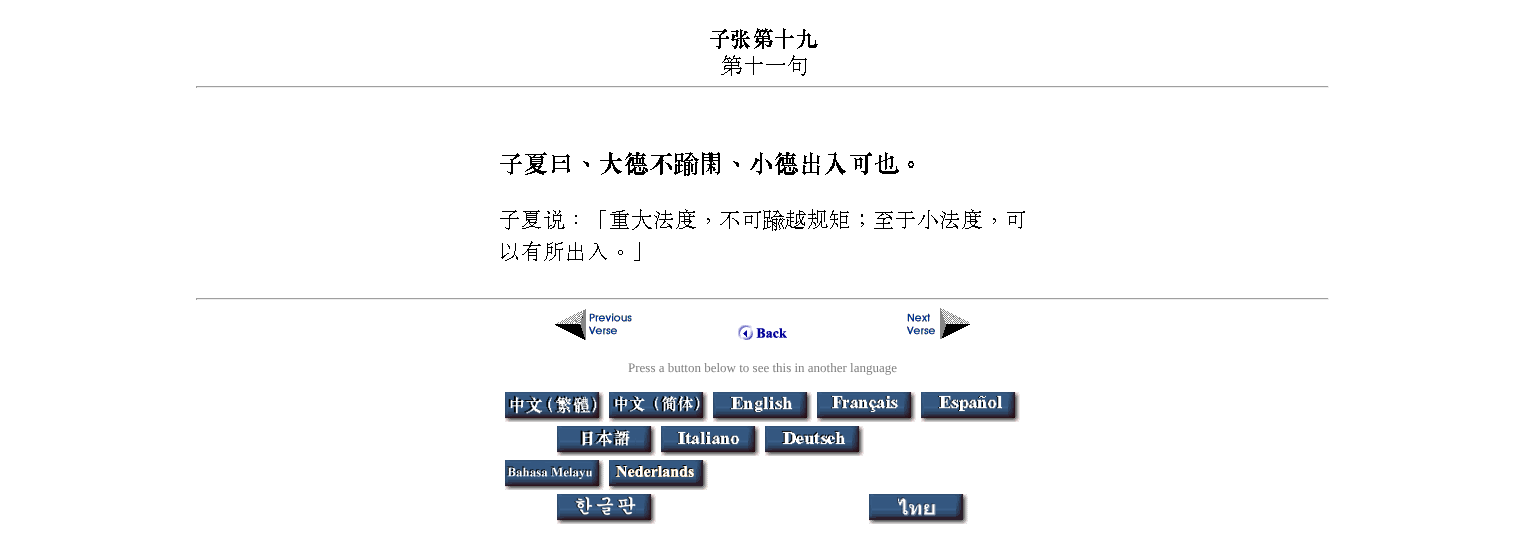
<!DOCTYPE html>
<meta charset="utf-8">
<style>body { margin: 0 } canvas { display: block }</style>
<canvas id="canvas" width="1525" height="544"></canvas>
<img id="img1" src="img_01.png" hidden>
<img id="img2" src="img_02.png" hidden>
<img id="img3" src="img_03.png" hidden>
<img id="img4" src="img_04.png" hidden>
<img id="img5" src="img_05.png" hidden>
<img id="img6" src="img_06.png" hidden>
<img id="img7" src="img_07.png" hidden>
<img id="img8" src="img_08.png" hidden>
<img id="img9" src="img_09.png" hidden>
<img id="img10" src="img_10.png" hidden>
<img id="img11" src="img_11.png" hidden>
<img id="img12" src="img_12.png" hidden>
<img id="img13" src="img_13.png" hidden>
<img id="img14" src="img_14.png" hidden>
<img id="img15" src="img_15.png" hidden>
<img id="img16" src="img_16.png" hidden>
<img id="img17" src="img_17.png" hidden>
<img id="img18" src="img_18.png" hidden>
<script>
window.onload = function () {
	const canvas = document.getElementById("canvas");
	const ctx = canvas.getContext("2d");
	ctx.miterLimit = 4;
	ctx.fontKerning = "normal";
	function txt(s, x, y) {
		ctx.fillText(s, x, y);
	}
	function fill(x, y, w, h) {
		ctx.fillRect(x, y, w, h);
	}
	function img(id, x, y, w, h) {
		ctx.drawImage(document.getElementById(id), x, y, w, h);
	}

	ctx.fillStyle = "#FFFFFF";
	fill(0, 0, 1525, 544);
	img("img1", 710, 28, 108, 21);
	img("img2", 721, 55, 86, 21);
	ctx.fillStyle = "#9F9F9F";
	fill(196, 86, 1133, 1);
	ctx.fillStyle = "#EEEEEE";
	fill(1328, 86, 1, 2);
	fill(196, 87, 1133, 1);
	ctx.fillStyle = "#9F9F9F";
	fill(196, 86, 1, 2);
	img("img3", 500, 152, 525, 109);
	fill(196, 298, 1133, 1);
	ctx.fillStyle = "#EEEEEE";
	fill(1328, 298, 1, 2);
	fill(196, 299, 1133, 1);
	ctx.fillStyle = "#9F9F9F";
	fill(196, 298, 1, 2);
	img("img4", 555, 309, 77, 31);
	img("img5", 738, 325, 49, 15);
	img("img6", 907, 308, 63, 31);
	img("img7", 505, 392, 99, 30);
	img("img8", 609, 392, 99, 30);
	img("img9", 713, 392, 99, 30);
	img("img10", 817, 392, 99, 30);
	img("img11", 921, 392, 99, 30);
	img("img12", 557, 426, 99, 30);
	img("img13", 661, 426, 99, 30);
	img("img14", 765, 426, 99, 30);
	img("img15", 505, 460, 99, 30);
	img("img16", 609, 460, 99, 30);
	img("img17", 557, 494, 99, 30);
	img("img18", 869, 494, 99, 30);
	ctx.font = "13px Liberation Serif";
	ctx.fillStyle = "#808080";
	txt("Press a button below to see this in another language", 628, 372);
};
</script>
